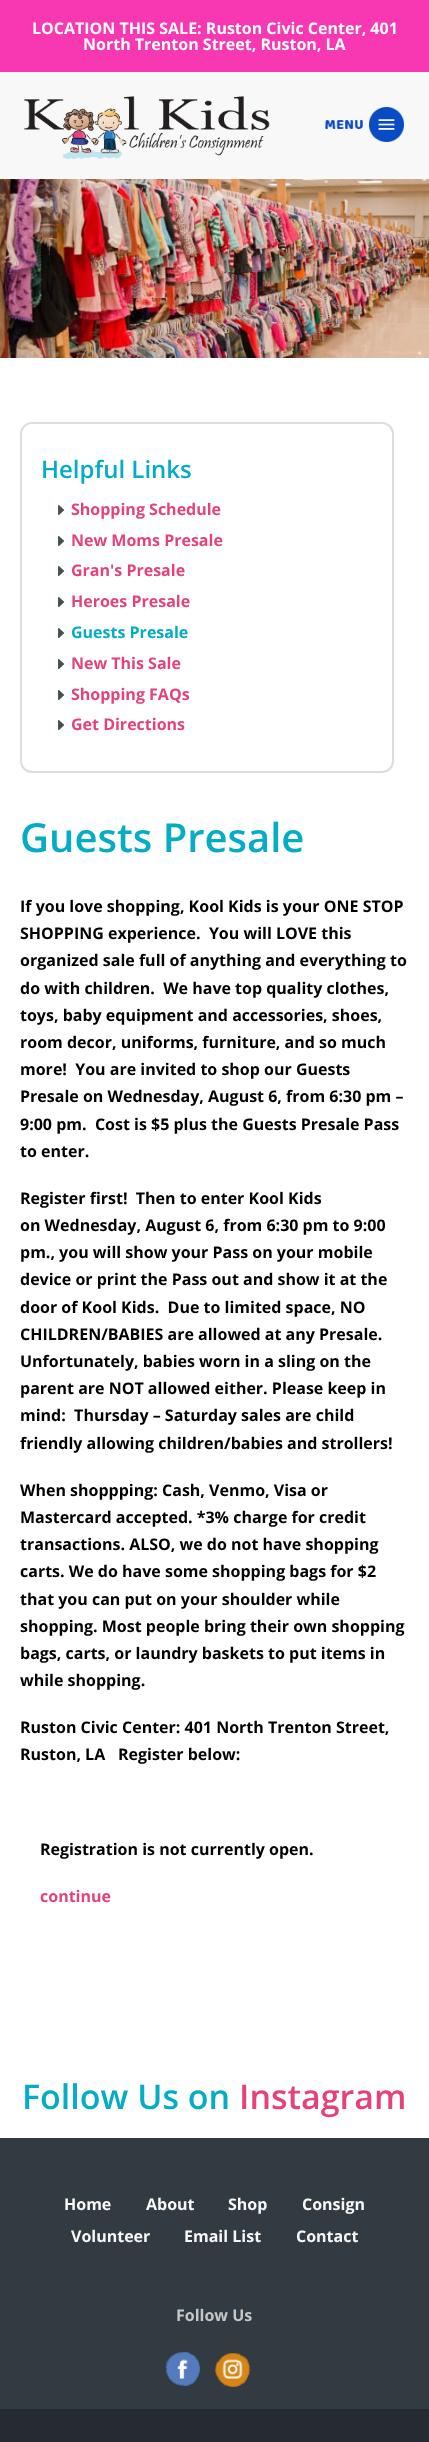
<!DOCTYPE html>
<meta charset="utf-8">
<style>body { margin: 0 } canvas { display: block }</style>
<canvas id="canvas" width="429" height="2442"></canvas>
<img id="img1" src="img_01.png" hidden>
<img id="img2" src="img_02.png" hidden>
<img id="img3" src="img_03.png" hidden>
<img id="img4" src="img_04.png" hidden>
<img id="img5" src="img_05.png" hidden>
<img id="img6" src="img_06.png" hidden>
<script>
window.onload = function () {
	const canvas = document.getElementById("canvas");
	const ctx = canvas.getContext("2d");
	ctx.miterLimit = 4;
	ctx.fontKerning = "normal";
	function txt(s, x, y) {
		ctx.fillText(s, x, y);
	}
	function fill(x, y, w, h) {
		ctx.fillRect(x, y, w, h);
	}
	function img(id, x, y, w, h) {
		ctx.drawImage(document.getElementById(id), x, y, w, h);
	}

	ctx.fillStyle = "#FFFFFF";
	fill(0, 0, 429, 2442);
	ctx.fillStyle = "#F738B2";
	fill(0, 0, 429, 72);
	ctx.fillStyle = "#F8F8F8";
	fill(0, 72, 429, 107);
	img("img1", 24, 96, 246, 63);
	img("img2", 325, 107, 79, 35);
	img("img3", 0, 179, 429, 179);
	ctx.beginPath();
	ctx.roundRect(21, 423, 372, 349, 11);
	ctx.strokeStyle = "#DDDDDD";
	ctx.lineWidth = 2;
	ctx.stroke();
	img("img4", 58, 505, 6, 10);
	img("img4", 58, 536, 6, 10);
	img("img4", 58, 566, 6, 10);
	img("img4", 58, 597, 6, 10);
	img("img4", 58, 628, 6, 10);
	img("img4", 58, 659, 6, 10);
	img("img4", 58, 690, 6, 10);
	img("img4", 58, 720, 6, 10);
	ctx.fillStyle = "#323B42";
	fill(0, 2138, 429, 271);
	img("img5", 165, 2351, 36, 35);
	img("img6", 215, 2353, 35, 34);
	ctx.fillStyle = "#252B30";
	fill(0, 2409, 429, 33);
	ctx.font = "bold 16px Open Sans";
	ctx.fillStyle = "#FFFFFF";
	txt("LOCATION THIS SALE: Ruston Civic Center, 401", 32, 34);
	txt("North Trenton Street, Ruston, LA", 83, 50);
	ctx.font = "600 24px Open Sans";
	ctx.fillStyle = "#04ACC6";
	txt("Helpful Links", 41, 478);
	ctx.font = "bold 16px Open Sans";
	ctx.fillStyle = "#E4437A";
	txt("Shopping Schedule", 71, 515);
	txt("New Moms Presale", 71, 546);
	txt("Gran's Presale", 71, 576);
	txt("Heroes Presale", 71, 607);
	ctx.fillStyle = "#04ACC6";
	txt("Guests Presale", 71, 638);
	ctx.fillStyle = "#E4437A";
	txt("New This Sale", 71, 669);
	txt("Shopping FAQs", 71, 700);
	txt("Get Directions", 71, 730);
	ctx.font = "600 40px Open Sans";
	ctx.fillStyle = "#04ACC6";
	txt("Guests Presale", 20, 852);
	ctx.font = "bold 16px Open Sans";
	ctx.fillStyle = "#000000";
	txt("If you love shopping, Kool Kids is your ONE STOP", 20, 912);
	txt("SHOPPING experience.  You will LOVE this", 20, 939);
	txt("organized sale full of anything and everything to", 20, 966);
	txt("do with children.  We have top quality clothes,", 20, 994);
	txt("toys, baby equipment and accessories, shoes,", 20, 1021);
	txt("room decor, uniforms, furniture, and so much", 20, 1048);
	txt("more!  You are invited to shop our Guests", 20, 1075);
	txt("Presale on Wednesday, August 6, from 6:30 pm –", 20, 1102);
	txt("9:00 pm.  Cost is $5 plus the Guests Presale Pass", 20, 1130);
	txt("to enter.", 20, 1157);
	txt("Register first!  Then to enter Kool Kids", 20, 1204);
	txt("on Wednesday, August 6, from 6:30 pm to 9:00", 20, 1231);
	txt("pm., you will show your Pass on your mobile", 20, 1258);
	txt("device or print the Pass out and show it at the", 20, 1285);
	txt("door of Kool Kids.  Due to limited space, NO", 20, 1313);
	txt("CHILDREN/BABIES are allowed at any Presale.", 20, 1340);
	txt("Unfortunately, babies worn in a sling on the", 20, 1367);
	txt("parent are NOT allowed either. Please keep in", 20, 1394);
	txt("mind:  Thursday – Saturday sales are child", 20, 1421);
	txt("friendly allowing children/babies and strollers!", 20, 1449);
	txt("When shoppping: Cash, Venmo, Visa or", 20, 1496);
	txt("Mastercard accepted. *3% charge for credit", 20, 1523);
	txt("transactions. ALSO, we do not have shopping", 20, 1550);
	txt("carts. We do have some shopping bags for $2", 20, 1577);
	txt("that you can put on your shoulder while", 20, 1605);
	txt("shopping. Most people bring their own shopping", 20, 1632);
	txt("bags, carts, or laundry baskets to put items in", 20, 1659);
	txt("while shopping.", 20, 1686);
	txt("Ruston Civic Center: 401 North Trenton Street,", 20, 1733);
	txt("Ruston, LA", 20, 1760);
	txt("Register below:", 118, 1760);
	txt("Registration is not currently open.", 40, 1855);
	ctx.fillStyle = "#E4437A";
	txt("continue", 40, 1902);
	ctx.font = "600 34px Open Sans";
	ctx.fillStyle = "#04ACC6";
	txt("Follow Us on", 22, 2109);
	ctx.fillStyle = "#E4437A";
	txt("Instagram", 239, 2109);
	ctx.font = "bold 16px Open Sans";
	ctx.fillStyle = "#F8F8F8";
	txt("Home", 64, 2210);
	txt("About", 146, 2210);
	txt("Shop", 228, 2210);
	txt("Consign", 302, 2210);
	txt("Volunteer", 71, 2242);
	txt("Email List", 184, 2242);
	txt("Contact", 296, 2242);
	ctx.fillStyle = "#C7C7C7";
	txt("Follow Us", 176, 2321);
};
</script>
